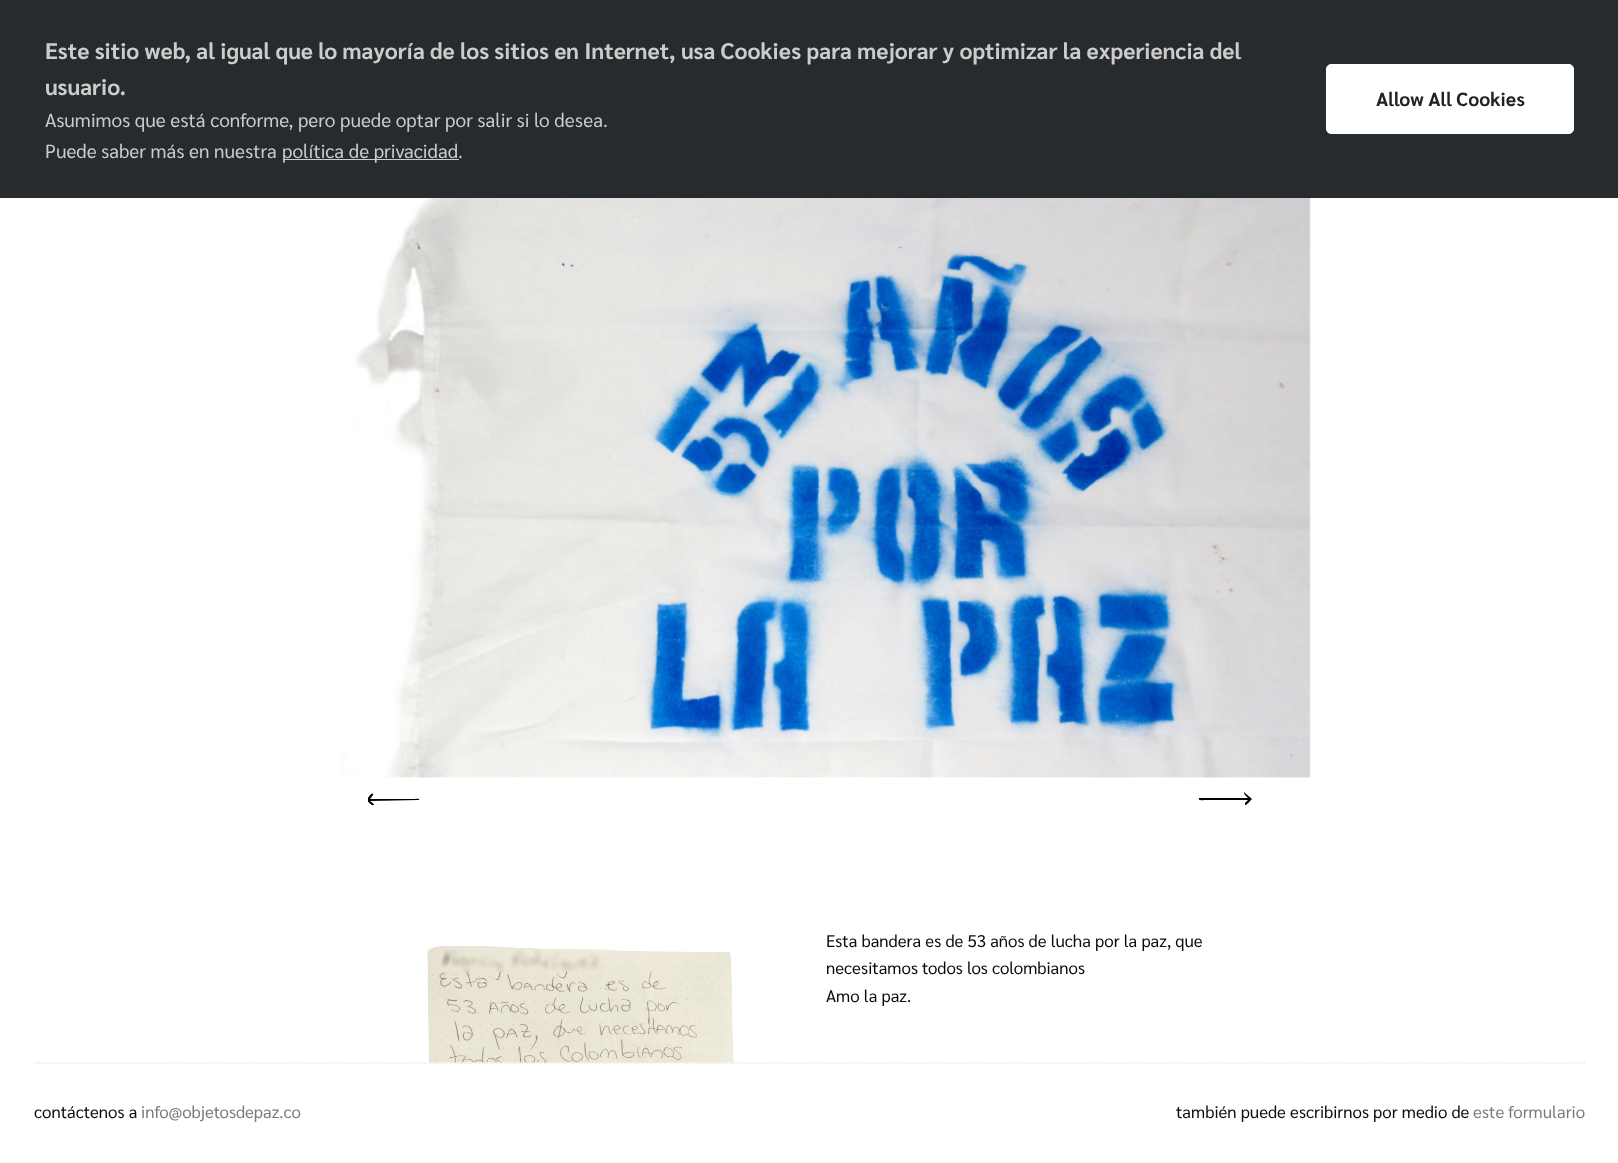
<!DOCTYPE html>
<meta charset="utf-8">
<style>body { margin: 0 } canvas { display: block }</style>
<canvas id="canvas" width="1618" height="1163"></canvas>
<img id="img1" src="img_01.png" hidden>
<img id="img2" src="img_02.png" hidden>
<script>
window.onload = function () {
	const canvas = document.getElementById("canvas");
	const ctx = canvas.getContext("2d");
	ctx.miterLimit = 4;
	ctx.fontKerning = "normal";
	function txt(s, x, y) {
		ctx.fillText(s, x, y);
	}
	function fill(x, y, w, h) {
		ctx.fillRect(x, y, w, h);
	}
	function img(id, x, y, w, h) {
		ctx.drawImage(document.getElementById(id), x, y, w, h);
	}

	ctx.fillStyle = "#FFFFFF";
	fill(0, 0, 1618, 1163);
	ctx.fillStyle = "#282B2D";
	fill(0, 0, 1618, 198);
	ctx.fillStyle = "#CCCCCC";
	fill(283, 159, 176, 1);
	ctx.fillStyle = "#FFFFFF";
	ctx.beginPath();
	ctx.roundRect(1326.5, 64.5, 247, 69, 4.5);
	ctx.fill();
	ctx.strokeStyle = "#FFFFFF";
	ctx.stroke();
	img("img1", 341, 198, 970, 580);
	ctx.save();
	ctx.beginPath();
	ctx.rect(368, 793, 52, 12);
	ctx.clip();
	ctx.fillStyle = "#000000";
	ctx.beginPath();
	ctx.moveTo(373, 806);
	ctx.bezierCurveTo(376, 806, 373, 803, 370, 801);
	ctx.lineTo(419, 800);
	ctx.bezierCurveTo(420, 798, 417, 799, 410, 799);
	ctx.lineTo(370, 799);
	ctx.lineTo(373, 795);
	ctx.lineTo(373, 794);
	ctx.bezierCurveTo(372, 792, 368, 798, 366, 800);
	ctx.closePath();
	ctx.fill();
	ctx.restore();
	ctx.fillStyle = "#000000";
	ctx.beginPath();
	ctx.moveTo(1245, 792);
	ctx.bezierCurveTo(1243, 793, 1245, 795, 1248, 798);
	ctx.lineTo(1199, 798);
	ctx.bezierCurveTo(1198, 801, 1201, 800, 1208, 800);
	ctx.lineTo(1248, 800);
	ctx.lineTo(1245, 803);
	ctx.lineTo(1245, 805);
	ctx.bezierCurveTo(1246, 806, 1251, 800, 1252, 799);
	ctx.lineTo(1245, 793);
	ctx.closePath();
	ctx.fill();
	img("img2", 427, 946, 307, 117);
	ctx.beginPath();
	ctx.moveTo(34, 1063);
	ctx.lineTo(1585, 1063);
	ctx.strokeStyle = "#DBDBDB";
	ctx.lineWidth = 1.2;
	ctx.setLineDash([1.25, 1.25]);
	ctx.stroke();
	ctx.font = "bold 22.5px Sarabun";
	ctx.fillStyle = "#CCCCCC";
	txt("Este sitio web, al igual que lo mayoría de los sitios en Internet, usa Cookies para mejorar y optimizar la experiencia del", 45, 59);
	txt("usuario.", 45, 95);
	ctx.font = "19.1px Sarabun";
	txt("Asumimos que está conforme, pero puede optar por salir si lo desea.", 45, 127);
	txt("Puede saber más en nuestra", 45, 158);
	txt("política de privacidad.", 282, 158);
	ctx.font = "bold 19.1px Sarabun";
	ctx.fillStyle = "#222222";
	txt("Allow All Cookies", 1376, 106);
	ctx.font = "16.9px Sarabun";
	ctx.fillStyle = "#0A0A0A";
	txt("Esta bandera es de 53 años de lucha por la paz, que", 826, 947);
	txt("necesitamos todos los colombianos", 826, 974);
	txt("Amo la paz.", 826, 1002);
	txt("contáctenos a", 34, 1118);
	ctx.fillStyle = "#7A7A7A";
	txt("info@objetosdepaz.co", 141, 1118);
	ctx.fillStyle = "#0A0A0A";
	txt("también puede escribirnos por medio de", 1176, 1118);
	ctx.fillStyle = "#7A7A7A";
	txt("este formulario", 1473, 1118);
};
</script>
